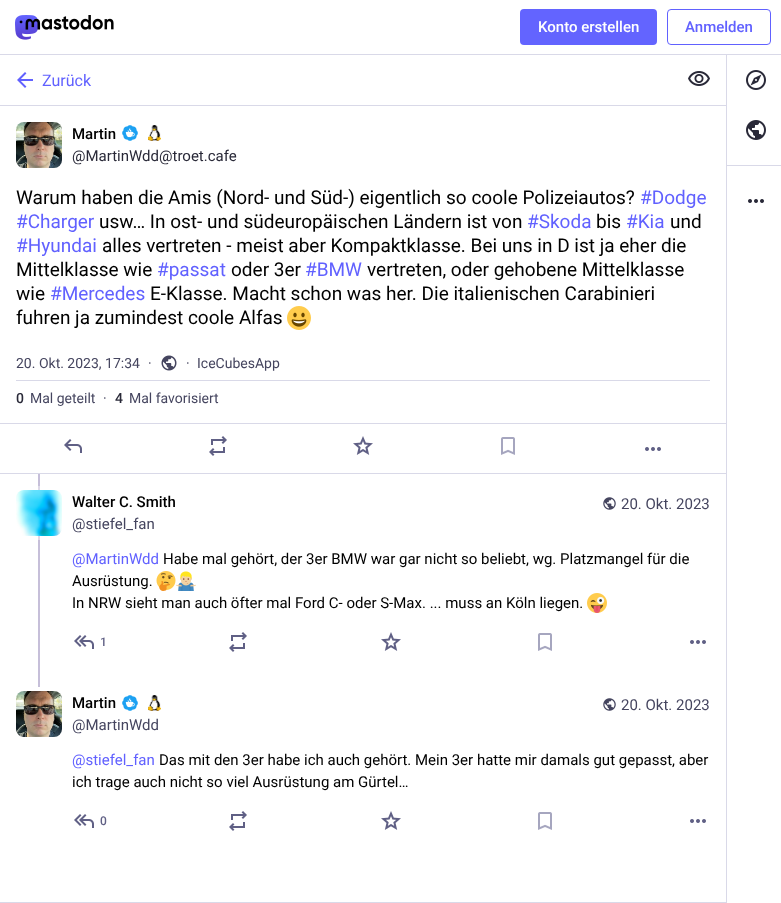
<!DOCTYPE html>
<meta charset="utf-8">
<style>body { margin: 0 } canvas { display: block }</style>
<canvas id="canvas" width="781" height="903"></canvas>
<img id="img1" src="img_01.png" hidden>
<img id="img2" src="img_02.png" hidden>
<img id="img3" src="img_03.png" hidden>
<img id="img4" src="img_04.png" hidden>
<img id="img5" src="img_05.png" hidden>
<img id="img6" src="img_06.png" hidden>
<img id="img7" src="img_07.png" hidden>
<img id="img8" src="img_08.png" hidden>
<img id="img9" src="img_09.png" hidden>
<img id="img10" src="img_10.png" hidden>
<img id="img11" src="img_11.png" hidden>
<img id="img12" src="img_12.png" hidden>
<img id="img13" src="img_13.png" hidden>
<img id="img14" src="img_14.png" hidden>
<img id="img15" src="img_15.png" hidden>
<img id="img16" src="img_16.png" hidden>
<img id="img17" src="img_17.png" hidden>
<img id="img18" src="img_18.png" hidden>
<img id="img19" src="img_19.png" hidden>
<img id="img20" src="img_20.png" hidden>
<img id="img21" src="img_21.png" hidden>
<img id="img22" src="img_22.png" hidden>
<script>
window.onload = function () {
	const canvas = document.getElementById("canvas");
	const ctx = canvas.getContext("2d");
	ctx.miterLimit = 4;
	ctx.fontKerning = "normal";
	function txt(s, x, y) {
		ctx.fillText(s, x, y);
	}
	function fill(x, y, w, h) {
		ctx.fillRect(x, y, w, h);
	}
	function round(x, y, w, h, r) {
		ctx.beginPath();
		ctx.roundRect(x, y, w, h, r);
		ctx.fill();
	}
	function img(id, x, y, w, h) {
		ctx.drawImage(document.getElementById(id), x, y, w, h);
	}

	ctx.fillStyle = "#FFFFFF";
	fill(0, 0, 781, 903);
	ctx.fillStyle = "#D9D9E8";
	fill(0, 54, 781, 1);
	img("img1", 15, 15, 99, 25);
	ctx.fillStyle = "#6364FF";
	round(520, 9, 137, 36, 4);
	ctx.beginPath();
	ctx.roundRect(667.5, 9.5, 103, 35, 3.5);
	ctx.strokeStyle = "#6161FF";
	ctx.stroke();
	ctx.fillStyle = "#D9D9E8";
	fill(0, 105, 726, 1);
	img("img2", 17, 72, 16, 16);
	img("img3", 688, 71, 22, 15);
	fill(0, 902, 726, 1);
	img("img4", 16, 122, 46, 46);
	img("img5", 122, 125, 16, 16);
	img("img6", 148, 125, 13, 16);
	img("img7", 287, 306, 24, 24);
	fill(16, 380, 694, 1);
	img("img8", 161, 355, 16, 16);
	fill(0, 423, 726, 1);
	fill(0, 473, 726, 1);
	img("img9", 64, 439, 18, 14);
	img("img10", 209, 436, 18, 20);
	img("img11", 353, 436, 20, 19);
	img("img12", 501, 437, 14, 18);
	img("img13", 645, 447, 16, 4);
	ctx.fillStyle = "#C6BFD9";
	fill(38, 474, 2, 213);
	ctx.fillStyle = "#DDD9E8";
	fill(38, 486, 2, 54);
	img("img14", 16, 490, 46, 46);
	img("img15", 603, 497, 13, 13);
	img("img16", 156, 571, 20, 20);
	img("img17", 176, 571, 20, 20);
	img("img18", 587, 593, 20, 20);
	img("img19", 74, 635, 20, 14);
	img("img10", 229, 632, 18, 20);
	img("img11", 381, 632, 20, 19);
	img("img12", 538, 633, 14, 18);
	img("img13", 690, 640, 16, 4);
	img("img4", 16, 691, 46, 46);
	img("img5", 122, 695, 16, 16);
	img("img6", 148, 695, 13, 16);
	img("img15", 603, 698, 13, 13);
	img("img19", 74, 814, 20, 14);
	img("img10", 229, 811, 18, 20);
	img("img11", 381, 811, 20, 19);
	img("img12", 538, 812, 14, 18);
	img("img13", 690, 819, 16, 4);
	ctx.fillStyle = "#D9D9E8";
	fill(726, 55, 1, 848);
	img("img20", 746, 70, 20, 20);
	img("img21", 746, 120, 20, 20);
	fill(727, 165, 54, 1);
	img("img22", 748, 199, 16, 4);
	ctx.font = "500 15px Roboto";
	ctx.fillStyle = "#FFFFFF";
	txt("Konto erstellen", 538, 32);
	ctx.fillStyle = "#6161FF";
	txt("Anmelden", 685, 32);
	ctx.font = "16px Roboto";
	txt("Zurück", 42, 86);
	ctx.font = "500 15px Roboto";
	ctx.fillStyle = "#000000";
	txt("Martin", 72, 139);
	ctx.font = "15px Roboto";
	ctx.fillStyle = "#292938";
	txt("@MartinWdd@troet.cafe", 72, 161);
	ctx.font = "19px Roboto";
	ctx.fillStyle = "#000000";
	txt("Warum haben die Amis (Nord- und Süd-) eigentlich so coole Polizeiautos?", 16, 204);
	ctx.fillStyle = "#6161FF";
	txt("#Dodge", 640, 204);
	txt("#Charger", 16, 228);
	ctx.fillStyle = "#000000";
	txt("usw… In ost- und südeuropäischen Ländern ist von", 99, 228);
	ctx.fillStyle = "#6161FF";
	txt("#Skoda", 527, 228);
	ctx.fillStyle = "#000000";
	txt("bis", 596, 228);
	ctx.fillStyle = "#6161FF";
	txt("#Kia", 626, 228);
	ctx.fillStyle = "#000000";
	txt("und", 670, 228);
	ctx.fillStyle = "#6161FF";
	txt("#Hyundai", 16, 252);
	ctx.fillStyle = "#000000";
	txt("alles vertreten - meist aber Kompaktklasse. Bei uns in D ist ja eher die", 102, 252);
	txt("Mittelklasse wie", 16, 276);
	ctx.fillStyle = "#6161FF";
	txt("#passat", 157, 276);
	ctx.fillStyle = "#000000";
	txt("oder 3er", 231, 276);
	ctx.fillStyle = "#6161FF";
	txt("#BMW", 305, 276);
	ctx.fillStyle = "#000000";
	txt("vertreten, oder gehobene Mittelklasse", 367, 276);
	txt("wie", 16, 300);
	ctx.fillStyle = "#6161FF";
	txt("#Mercedes", 50, 300);
	ctx.fillStyle = "#000000";
	txt("E-Klasse. Macht schon was her. Die italienischen Carabinieri", 150, 300);
	txt("fuhren ja zumindest coole Alfas", 16, 324);
	ctx.font = "14px Roboto";
	ctx.fillStyle = "#45455F";
	txt("20. Okt. 2023, 17:34", 16, 368);
	txt("·", 148, 368);
	txt("·", 186, 368);
	txt("IceCubesApp", 197, 368);
	ctx.font = "500 14px Roboto";
	ctx.fillStyle = "#292938";
	txt("0", 16, 403);
	ctx.font = "14px Roboto";
	ctx.fillStyle = "#45455F";
	txt("Mal geteilt", 30, 403);
	txt("·", 103, 403);
	ctx.font = "500 14px Roboto";
	ctx.fillStyle = "#292938";
	txt("4", 115, 403);
	ctx.font = "14px Roboto";
	ctx.fillStyle = "#45455F";
	txt("Mal favorisiert", 129, 403);
	ctx.font = "500 15px Roboto";
	ctx.fillStyle = "#000000";
	txt("Walter C. Smith", 72, 507);
	ctx.font = "15px Roboto";
	ctx.fillStyle = "#45455F";
	txt("@stiefel_fan", 72, 529);
	txt("20. Okt. 2023", 621, 509);
	ctx.fillStyle = "#6161FF";
	txt("@MartinWdd", 72, 564);
	ctx.fillStyle = "#000000";
	txt("Habe mal gehört, der 3er BMW war gar nicht so beliebt, wg. Platzmangel für die", 163, 564);
	txt("Ausrüstung.", 72, 586);
	txt("In NRW sieht man auch öfter mal Ford C- oder S-Max. ... muss an Köln liegen.", 72, 608);
	ctx.font = "500 12px Roboto";
	ctx.fillStyle = "#606085";
	txt("1", 100, 646);
	ctx.font = "500 15px Roboto";
	ctx.fillStyle = "#000000";
	txt("Martin", 72, 708);
	ctx.font = "15px Roboto";
	ctx.fillStyle = "#45455F";
	txt("@MartinWdd", 72, 730);
	txt("20. Okt. 2023", 621, 710);
	ctx.fillStyle = "#6161FF";
	txt("@stiefel_fan", 72, 765);
	ctx.fillStyle = "#000000";
	txt("Das mit den 3er habe ich auch gehört. Mein 3er hatte mir damals gut gepasst, aber", 159, 765);
	txt("ich trage auch nicht so viel Ausrüstung am Gürtel…", 72, 787);
	ctx.font = "500 12px Roboto";
	ctx.fillStyle = "#606085";
	txt("0", 100, 825);
};
</script>
